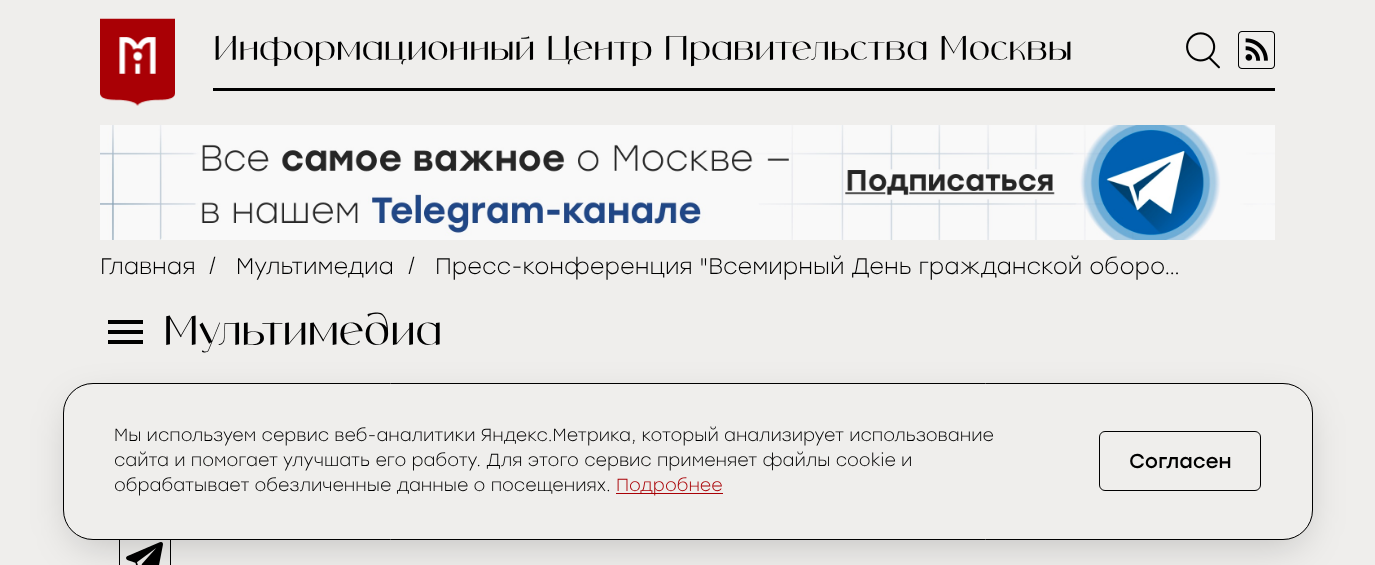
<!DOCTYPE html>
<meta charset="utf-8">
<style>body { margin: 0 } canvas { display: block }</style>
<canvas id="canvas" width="1375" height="565"></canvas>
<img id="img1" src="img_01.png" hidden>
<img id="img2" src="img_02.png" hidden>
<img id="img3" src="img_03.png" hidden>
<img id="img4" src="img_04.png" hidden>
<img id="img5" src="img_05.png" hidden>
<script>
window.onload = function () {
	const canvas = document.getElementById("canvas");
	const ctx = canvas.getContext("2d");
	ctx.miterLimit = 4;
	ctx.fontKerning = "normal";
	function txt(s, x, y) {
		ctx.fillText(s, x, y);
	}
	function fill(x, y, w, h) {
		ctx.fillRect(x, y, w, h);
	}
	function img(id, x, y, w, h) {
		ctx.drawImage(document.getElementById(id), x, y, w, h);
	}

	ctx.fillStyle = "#EFEEEC";
	fill(0, 0, 1375, 565);
	img("img1", 100, 18, 75, 88);
	ctx.fillStyle = "#000000";
	fill(213, 88, 1062, 3);
	img("img2", 1186, 32, 34, 37);
	img("img3", 1238, 31, 37, 38);
	img("img4", 100, 125, 1175, 115);
	fill(108, 320, 35, 4);
	fill(108, 330, 35, 4);
	fill(108, 340, 35, 4);
	img("img5", 119, 540, 52, 25);
	ctx.fillStyle = "rgba(0, 0, 0, 0.2)";
	ctx.filter = "blur(20px)";
	ctx.beginPath();
	ctx.roundRect(73, 405, 1230, 138, 20);
	ctx.fill();
	ctx.filter = "none";
	ctx.fillStyle = "rgba(0, 0, 0, 0.15)";
	ctx.filter = "blur(0.5px)";
	ctx.beginPath();
	ctx.roundRect(63, 383, 1250, 157, 30);
	ctx.fill();
	ctx.filter = "none";
	ctx.fillStyle = "#EFEEEC";
	ctx.beginPath();
	ctx.roundRect(63.5, 383.5, 1249, 156, 29.5);
	ctx.fill();
	ctx.strokeStyle = "#000000";
	ctx.stroke();
	ctx.fillStyle = "#A90005";
	fill(616, 493, 107, 1);
	ctx.beginPath();
	ctx.roundRect(1099.5, 431.5, 161, 59, 5.5);
	ctx.stroke();
	ctx.font = "33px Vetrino";
	ctx.fillStyle = "#000000";
	txt("Информационный Центр Правительства Москвы", 213, 60);
	ctx.font = "300 22.5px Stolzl";
	txt("Главная", 100, 274);
	txt("/", 209, 274);
	txt("Мультимедиа", 236, 274);
	txt("/", 408, 274);
	txt("Пресс-конференция \"Всемирный День гражданской оборо…", 435, 274);
	ctx.font = "40px Vetrino";
	txt("Мультимедиа", 163, 345);
	ctx.font = "300 17.5px Stolzl";
	txt("Мы используем сервис веб-аналитики Яндекс.Метрика, который анализирует использование", 114, 441);
	txt("сайта и помогает улучшать его работу. Для этого сервис применяет файлы cookie и", 114, 466);
	txt("обрабатывает обезличенные данные о посещениях.", 114, 491);
	ctx.fillStyle = "#A90005";
	txt("Подробнее", 616, 491);
	ctx.font = "20px Stolzl";
	ctx.fillStyle = "#000000";
	txt("Согласен", 1129, 468);
};
</script>
